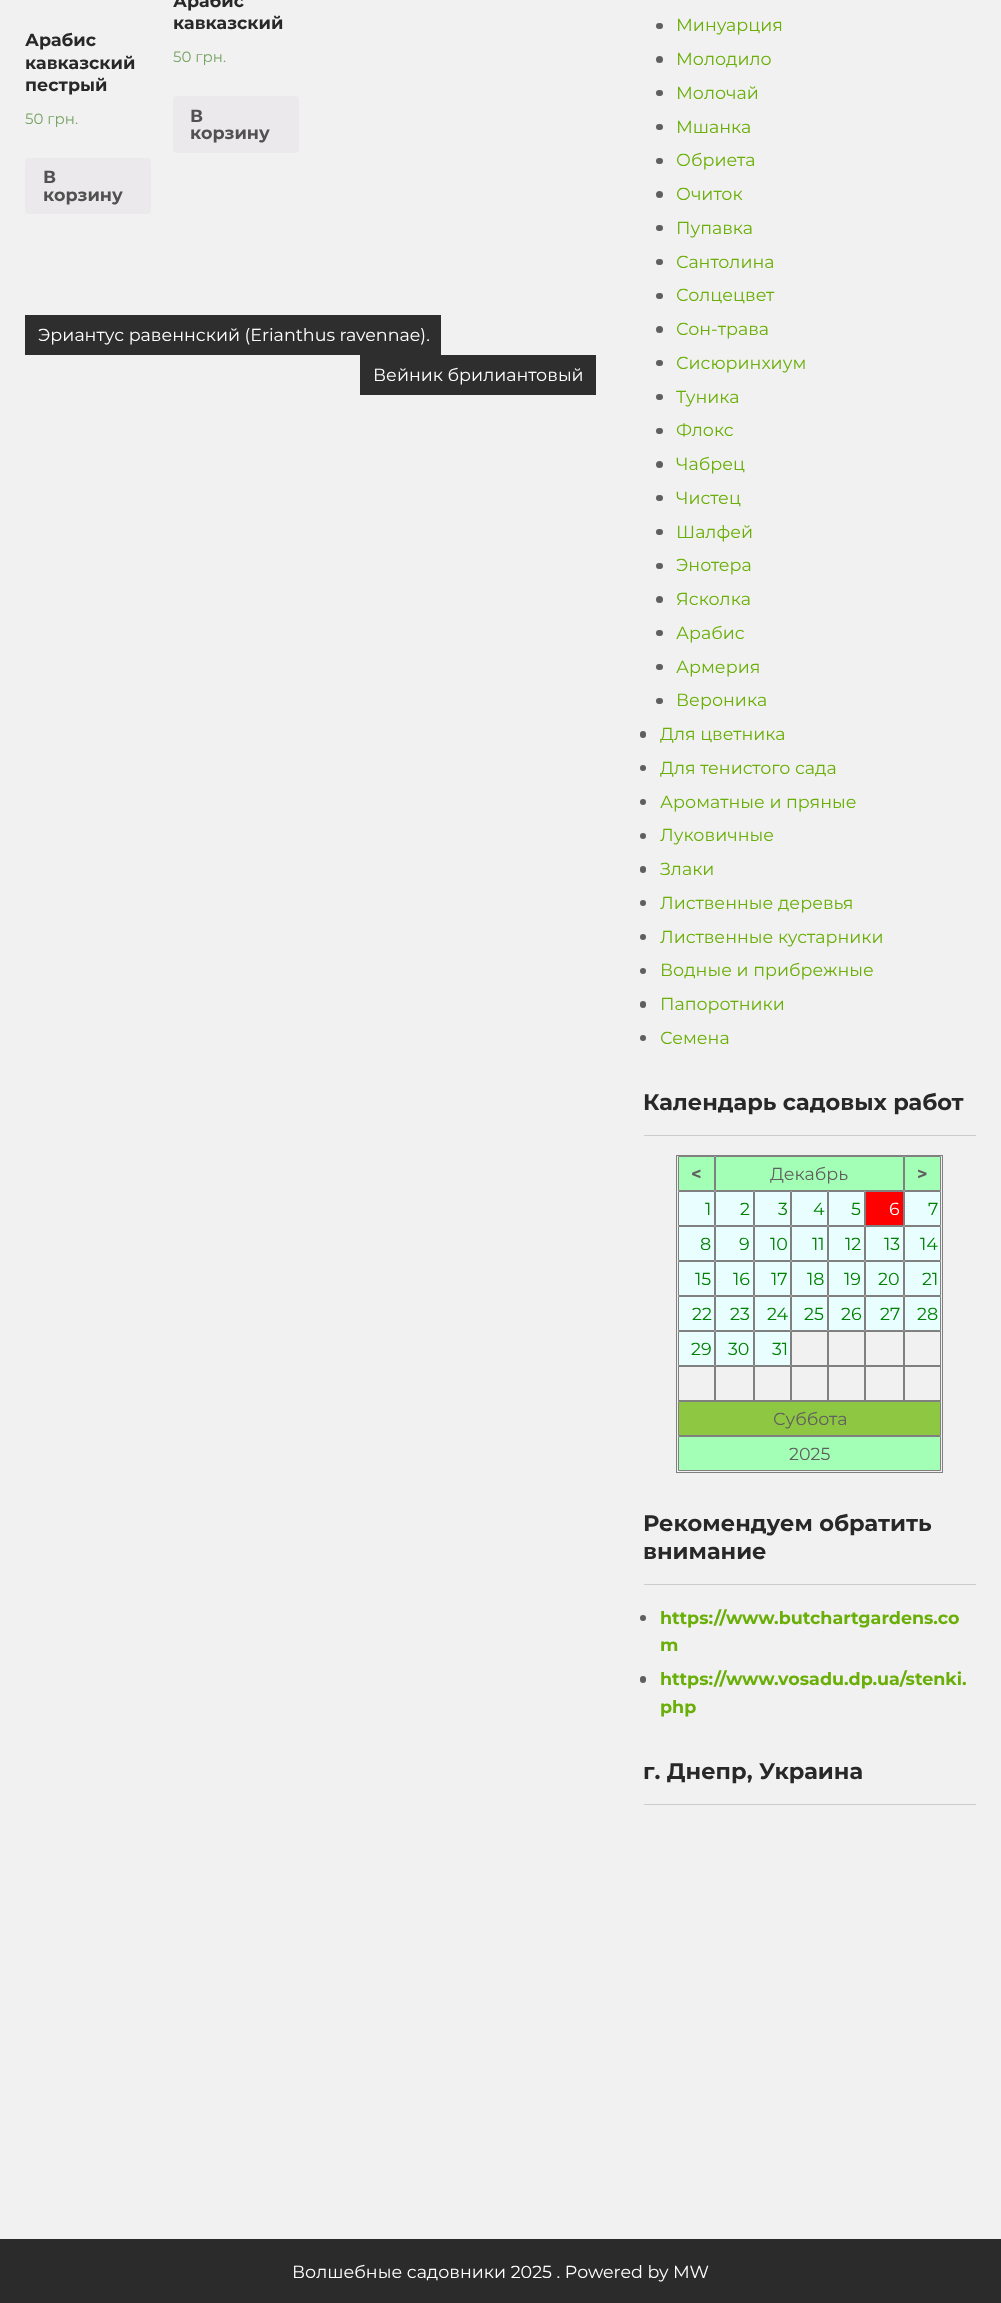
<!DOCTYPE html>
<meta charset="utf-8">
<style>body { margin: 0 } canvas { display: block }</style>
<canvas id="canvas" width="1001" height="2303"></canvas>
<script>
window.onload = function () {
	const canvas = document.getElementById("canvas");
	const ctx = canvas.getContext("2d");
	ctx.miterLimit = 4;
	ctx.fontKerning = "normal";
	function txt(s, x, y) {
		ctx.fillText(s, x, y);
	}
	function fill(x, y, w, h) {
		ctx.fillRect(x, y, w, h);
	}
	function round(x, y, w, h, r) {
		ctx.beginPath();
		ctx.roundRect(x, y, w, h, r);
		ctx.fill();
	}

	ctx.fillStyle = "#F1F1F1";
	fill(0, 0, 1001, 2303);
	ctx.fillStyle = "#EBE9EB";
	round(25, 158, 126, 56, 4);
	round(173, 96, 126, 57, 4);
	ctx.fillStyle = "#2E2E2E";
	fill(25, 315, 416, 40);
	fill(360, 355, 236, 40);
	ctx.fillStyle = "#5F5F5F";
	round(656, 23, 7, 6, 3);
	ctx.beginPath();
	ctx.arc(659.5, 59.5, 3.5, 0, Math.PI * 2);
	ctx.fill();
	round(656, 90, 7, 6, 3);
	round(656, 124, 7, 6, 3);
	round(656, 158, 7, 6, 3);
	ctx.beginPath();
	ctx.arc(659.5, 194.5, 3.5, 0, Math.PI * 2);
	ctx.fill();
	round(656, 225, 7, 6, 3);
	round(656, 259, 7, 6, 3);
	round(656, 293, 7, 6, 3);
	ctx.beginPath();
	ctx.arc(659.5, 329.5, 3.5, 0, Math.PI * 2);
	ctx.fill();
	round(656, 360, 7, 6, 3);
	round(656, 394, 7, 6, 3);
	round(656, 428, 7, 6, 3);
	ctx.beginPath();
	ctx.arc(659.5, 464.5, 3.5, 0, Math.PI * 2);
	ctx.fill();
	round(656, 495, 7, 6, 3);
	round(656, 529, 7, 6, 3);
	round(656, 563, 7, 6, 3);
	ctx.beginPath();
	ctx.arc(659.5, 599.5, 3.5, 0, Math.PI * 2);
	ctx.fill();
	round(656, 630, 7, 6, 3);
	round(656, 664, 7, 6, 3);
	round(656, 698, 7, 6, 3);
	round(640, 731, 6, 7, 3);
	ctx.beginPath();
	ctx.arc(643, 768, 3, 0, Math.PI * 2);
	ctx.fill();
	ctx.beginPath();
	ctx.arc(643, 802, 3, 0, Math.PI * 2);
	ctx.fill();
	ctx.beginPath();
	ctx.arc(643, 836, 3, 0, Math.PI * 2);
	ctx.fill();
	round(640, 866, 6, 7, 3);
	ctx.beginPath();
	ctx.arc(643, 903, 3, 0, Math.PI * 2);
	ctx.fill();
	ctx.beginPath();
	ctx.arc(643, 937, 3, 0, Math.PI * 2);
	ctx.fill();
	ctx.beginPath();
	ctx.arc(643, 971, 3, 0, Math.PI * 2);
	ctx.fill();
	round(640, 1001, 6, 7, 3);
	ctx.beginPath();
	ctx.arc(643, 1038, 3, 0, Math.PI * 2);
	ctx.fill();
	ctx.fillStyle = "#CCCCCC";
	fill(644, 1135, 332, 1);
	ctx.strokeStyle = "#808080";
	ctx.strokeRect(676.5, 1155.5, 266, 317);
	ctx.fillStyle = "#A4FFB6";
	ctx.beginPath();
	ctx.rect(678.5, 1156.5, 36, 34);
	ctx.fill();
	ctx.stroke();
	ctx.beginPath();
	ctx.rect(715.5, 1156.5, 188, 34);
	ctx.fill();
	ctx.stroke();
	ctx.beginPath();
	ctx.rect(904.5, 1156.5, 36, 34);
	ctx.fill();
	ctx.stroke();
	ctx.fillStyle = "#E9FFFF";
	ctx.beginPath();
	ctx.rect(678.5, 1191.5, 36, 34);
	ctx.fill();
	ctx.stroke();
	ctx.beginPath();
	ctx.rect(715.5, 1191.5, 38, 34);
	ctx.fill();
	ctx.stroke();
	ctx.beginPath();
	ctx.rect(754.5, 1191.5, 36, 34);
	ctx.fill();
	ctx.stroke();
	ctx.beginPath();
	ctx.rect(791.5, 1191.5, 36, 34);
	ctx.fill();
	ctx.stroke();
	ctx.beginPath();
	ctx.rect(828.5, 1191.5, 36, 34);
	ctx.fill();
	ctx.stroke();
	ctx.fillStyle = "#FF0000";
	ctx.beginPath();
	ctx.rect(865.5, 1191.5, 38, 34);
	ctx.fill();
	ctx.stroke();
	ctx.fillStyle = "#E9FFFF";
	ctx.beginPath();
	ctx.rect(904.5, 1191.5, 36, 34);
	ctx.fill();
	ctx.stroke();
	ctx.beginPath();
	ctx.rect(678.5, 1226.5, 36, 34);
	ctx.fill();
	ctx.stroke();
	ctx.beginPath();
	ctx.rect(715.5, 1226.5, 38, 34);
	ctx.fill();
	ctx.stroke();
	ctx.beginPath();
	ctx.rect(754.5, 1226.5, 36, 34);
	ctx.fill();
	ctx.stroke();
	ctx.beginPath();
	ctx.rect(791.5, 1226.5, 36, 34);
	ctx.fill();
	ctx.stroke();
	ctx.beginPath();
	ctx.rect(828.5, 1226.5, 36, 34);
	ctx.fill();
	ctx.stroke();
	ctx.beginPath();
	ctx.rect(865.5, 1226.5, 38, 34);
	ctx.fill();
	ctx.stroke();
	ctx.beginPath();
	ctx.rect(904.5, 1226.5, 36, 34);
	ctx.fill();
	ctx.stroke();
	ctx.beginPath();
	ctx.rect(678.5, 1261.5, 36, 34);
	ctx.fill();
	ctx.stroke();
	ctx.beginPath();
	ctx.rect(715.5, 1261.5, 38, 34);
	ctx.fill();
	ctx.stroke();
	ctx.beginPath();
	ctx.rect(754.5, 1261.5, 36, 34);
	ctx.fill();
	ctx.stroke();
	ctx.beginPath();
	ctx.rect(791.5, 1261.5, 36, 34);
	ctx.fill();
	ctx.stroke();
	ctx.beginPath();
	ctx.rect(828.5, 1261.5, 36, 34);
	ctx.fill();
	ctx.stroke();
	ctx.beginPath();
	ctx.rect(865.5, 1261.5, 38, 34);
	ctx.fill();
	ctx.stroke();
	ctx.beginPath();
	ctx.rect(904.5, 1261.5, 36, 34);
	ctx.fill();
	ctx.stroke();
	ctx.beginPath();
	ctx.rect(678.5, 1296.5, 36, 34);
	ctx.fill();
	ctx.stroke();
	ctx.beginPath();
	ctx.rect(715.5, 1296.5, 38, 34);
	ctx.fill();
	ctx.stroke();
	ctx.beginPath();
	ctx.rect(754.5, 1296.5, 36, 34);
	ctx.fill();
	ctx.stroke();
	ctx.beginPath();
	ctx.rect(791.5, 1296.5, 36, 34);
	ctx.fill();
	ctx.stroke();
	ctx.beginPath();
	ctx.rect(828.5, 1296.5, 36, 34);
	ctx.fill();
	ctx.stroke();
	ctx.beginPath();
	ctx.rect(865.5, 1296.5, 38, 34);
	ctx.fill();
	ctx.stroke();
	ctx.beginPath();
	ctx.rect(904.5, 1296.5, 36, 34);
	ctx.fill();
	ctx.stroke();
	ctx.beginPath();
	ctx.rect(678.5, 1331.5, 36, 34);
	ctx.fill();
	ctx.stroke();
	ctx.beginPath();
	ctx.rect(715.5, 1331.5, 38, 34);
	ctx.fill();
	ctx.stroke();
	ctx.beginPath();
	ctx.rect(754.5, 1331.5, 36, 34);
	ctx.fill();
	ctx.stroke();
	ctx.strokeRect(791.5, 1331.5, 36, 34);
	ctx.strokeRect(828.5, 1331.5, 36, 34);
	ctx.strokeRect(865.5, 1331.5, 38, 34);
	ctx.strokeRect(904.5, 1331.5, 36, 34);
	ctx.strokeRect(678.5, 1366.5, 36, 34);
	ctx.strokeRect(715.5, 1366.5, 38, 34);
	ctx.strokeRect(754.5, 1366.5, 36, 34);
	ctx.strokeRect(791.5, 1366.5, 36, 34);
	ctx.strokeRect(828.5, 1366.5, 36, 34);
	ctx.strokeRect(865.5, 1366.5, 38, 34);
	ctx.strokeRect(904.5, 1366.5, 36, 34);
	ctx.fillStyle = "#8EC741";
	ctx.beginPath();
	ctx.rect(678.5, 1401.5, 262, 34);
	ctx.fill();
	ctx.stroke();
	ctx.fillStyle = "#A4FFB6";
	ctx.beginPath();
	ctx.rect(678.5, 1436.5, 262, 34);
	ctx.fill();
	ctx.stroke();
	ctx.fillStyle = "#CCCCCC";
	fill(644, 1584, 332, 1);
	ctx.fillStyle = "#5F5F5F";
	ctx.beginPath();
	ctx.arc(643, 1618, 3, 0, Math.PI * 2);
	ctx.fill();
	round(640, 1676, 6, 7, 3);
	ctx.fillStyle = "#CCCCCC";
	fill(644, 1804, 332, 1);
	ctx.fillStyle = "#2B2B2B";
	fill(0, 2239, 1001, 64);
	ctx.font = "bold 17.5px Montserrat";
	ctx.fillStyle = "#282828";
	txt("Арабис", 25, 46);
	txt("кавказский", 25, 69);
	txt("пестрый", 25, 91);
	ctx.font = "15px Montserrat";
	ctx.fillStyle = "#77A464";
	txt("50 грн.", 25, 124);
	ctx.font = "bold 17.5px Montserrat";
	ctx.fillStyle = "#515151";
	txt("В", 43, 183);
	txt("корзину", 43, 201);
	ctx.fillStyle = "#282828";
	txt("Арабис", 173, 7);
	txt("кавказский", 173, 29);
	ctx.font = "15px Montserrat";
	ctx.fillStyle = "#77A464";
	txt("50 грн.", 173, 62);
	ctx.font = "bold 17.5px Montserrat";
	ctx.fillStyle = "#515151";
	txt("В", 190, 122);
	txt("корзину", 190, 139);
	ctx.font = "17.5px Montserrat";
	ctx.fillStyle = "#FFFFFF";
	txt("Эриантус равеннский (Erianthus ravennae).", 38, 341);
	txt("Вейник брилиантовый", 373, 381);
	ctx.fillStyle = "#69AF07";
	txt("Минуарция", 676, 31);
	txt("Молодило", 676, 65);
	txt("Молочай", 676, 99);
	txt("Мшанка", 676, 133);
	txt("Обриета", 676, 166);
	txt("Очиток", 676, 200);
	txt("Пупавка", 676, 234);
	txt("Сантолина", 676, 268);
	txt("Солцецвет", 676, 301);
	txt("Сон-трава", 676, 335);
	txt("Сисюринхиум", 676, 369);
	txt("Туника", 676, 403);
	txt("Флокс", 676, 436);
	txt("Чабрец", 676, 470);
	txt("Чистец", 676, 504);
	txt("Шалфей", 676, 538);
	txt("Энотера", 676, 571);
	txt("Ясколка", 676, 605);
	txt("Арабис", 676, 639);
	txt("Армерия", 676, 673);
	txt("Вероника", 676, 706);
	txt("Для цветника", 660, 740);
	txt("Для тенистого сада", 660, 774);
	txt("Ароматные и пряные", 660, 808);
	txt("Луковичные", 660, 841);
	txt("Злаки", 660, 875);
	txt("Лиственные деревья", 660, 909);
	txt("Лиственные кустарники", 660, 943);
	txt("Водные и прибрежные", 660, 976);
	txt("Папоротники", 660, 1010);
	txt("Семена", 660, 1044);
	ctx.font = "bold 22.5px Montserrat";
	ctx.fillStyle = "#282828";
	txt("Календарь садовых работ", 643, 1110);
	ctx.font = "bold 17.5px Montserrat";
	ctx.fillStyle = "#5F5F5F";
	txt("<", 691, 1180);
	ctx.font = "17.5px Montserrat";
	txt("Декабрь", 770, 1180);
	ctx.font = "bold 17.5px Montserrat";
	txt(">", 917, 1180);
	ctx.font = "17.5px Montserrat";
	ctx.fillStyle = "#008000";
	txt("1", 705, 1215);
	txt("2", 740, 1215);
	txt("3", 778, 1215);
	txt("4", 813, 1215);
	txt("5", 851, 1215);
	ctx.fillStyle = "#FFFFFF";
	txt("6", 889, 1215);
	ctx.fillStyle = "#008000";
	txt("7", 928, 1215);
	txt("8", 700, 1250);
	txt("9", 739, 1250);
	txt("10", 770, 1250);
	txt("11", 812, 1250);
	txt("12", 845, 1250);
	txt("13", 884, 1250);
	txt("14", 920, 1250);
	txt("15", 695, 1285);
	txt("16", 733, 1285);
	txt("17", 771, 1285);
	txt("18", 807, 1285);
	txt("19", 844, 1285);
	txt("20", 878, 1285);
	txt("21", 922, 1285);
	txt("22", 692, 1320);
	txt("23", 730, 1320);
	txt("24", 767, 1320);
	txt("25", 804, 1320);
	txt("26", 841, 1320);
	txt("27", 880, 1320);
	txt("28", 917, 1320);
	txt("29", 691, 1355);
	txt("30", 728, 1355);
	txt("31", 772, 1355);
	ctx.fillStyle = "#5F5F5F";
	txt("Суббота", 773, 1425);
	txt("2025", 789, 1460);
	ctx.font = "bold 22.5px Montserrat";
	ctx.fillStyle = "#282828";
	txt("Рекомендуем обратить", 643, 1531);
	txt("внимание", 643, 1559);
	ctx.font = "bold 17.5px Montserrat";
	ctx.fillStyle = "#69AF07";
	txt("https://www.butchartgardens.co", 660, 1624);
	txt("m", 660, 1651);
	txt("https://www.vosadu.dp.ua/stenki.", 660, 1685);
	txt("php", 660, 1713);
	ctx.font = "bold 22.5px Montserrat";
	ctx.fillStyle = "#282828";
	txt("г. Днепр, Украина", 643, 1779);
	ctx.font = "17.5px Montserrat";
	ctx.fillStyle = "#FFFFFF";
	txt("Волшебные садовники 2025 . Powered by MW", 292, 2278);
};
</script>
